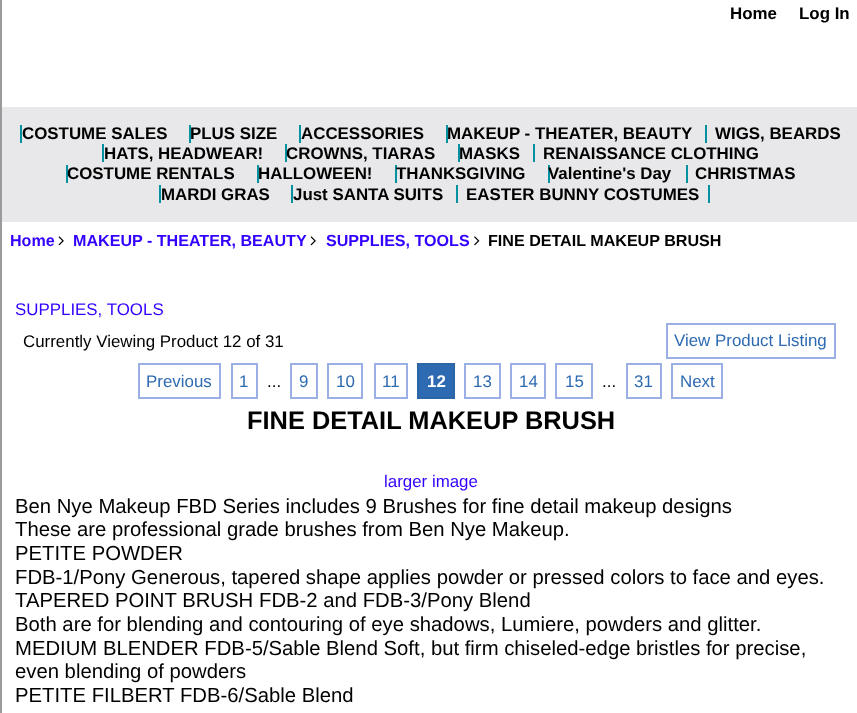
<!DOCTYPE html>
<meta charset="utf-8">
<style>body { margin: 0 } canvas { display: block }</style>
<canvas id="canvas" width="857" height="713"></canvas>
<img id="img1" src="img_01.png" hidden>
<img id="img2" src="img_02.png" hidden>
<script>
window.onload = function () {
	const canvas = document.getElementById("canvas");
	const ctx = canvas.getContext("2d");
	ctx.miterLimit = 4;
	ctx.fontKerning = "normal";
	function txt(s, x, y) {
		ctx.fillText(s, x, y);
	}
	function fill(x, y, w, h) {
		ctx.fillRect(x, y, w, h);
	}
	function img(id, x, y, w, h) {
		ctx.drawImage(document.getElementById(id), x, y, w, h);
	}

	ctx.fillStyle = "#FFFFFF";
	fill(0, 0, 857, 713);
	ctx.strokeStyle = "#9A9A9A";
	ctx.lineWidth = 2;
	ctx.strokeRect(1, -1, 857, 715);
	ctx.fillStyle = "#E8E8EA";
	fill(2, 107, 855, 115);
	ctx.fillStyle = "#05919F";
	fill(20, 125, 2, 18);
	fill(189, 125, 2, 18);
	fill(299, 125, 2, 18);
	fill(446, 125, 2, 18);
	fill(705, 125, 2, 18);
	fill(102, 144, 2, 18);
	fill(285, 144, 2, 18);
	fill(458, 144, 2, 18);
	fill(533, 144, 2, 18);
	fill(66, 165, 2, 18);
	fill(257, 165, 2, 18);
	fill(395, 165, 2, 18);
	fill(548, 165, 2, 18);
	fill(686, 165, 2, 18);
	fill(159, 185, 2, 18);
	fill(291, 185, 2, 18);
	fill(708, 185, 2, 18);
	fill(456, 185, 2, 18);
	img("img1", 58, 236, 6, 10);
	img("img1", 310, 236, 6, 10);
	img("img2", 474, 236, 6, 10);
	ctx.strokeStyle = "#9AAFE5";
	ctx.strokeRect(667, 324, 168, 34);
	ctx.strokeRect(139, 364, 81, 34);
	ctx.strokeRect(232, 364, 25, 34);
	ctx.strokeRect(291, 364, 26, 34);
	ctx.strokeRect(328, 364, 34, 34);
	ctx.strokeRect(375, 364, 32, 34);
	ctx.fillStyle = "#2E6AB1";
	ctx.beginPath();
	ctx.rect(418, 364, 36, 34);
	ctx.fill();
	ctx.strokeStyle = "#2B66A5";
	ctx.stroke();
	ctx.strokeStyle = "#9AAFE5";
	ctx.strokeRect(465, 364, 35, 34);
	ctx.strokeRect(511, 364, 34, 34);
	ctx.strokeRect(556, 364, 36, 34);
	ctx.strokeRect(627, 364, 34, 34);
	ctx.strokeRect(672, 364, 50, 34);
	ctx.font = "bold 16.9px Liberation Sans";
	ctx.fillStyle = "#000000";
	txt("Home", 730, 19);
	txt("Log In", 799, 19);
	txt("COSTUME SALES", 22, 139);
	txt("PLUS SIZE", 190, 139);
	txt("ACCESSORIES", 301, 139);
	txt("MAKEUP - THEATER, BEAUTY", 447, 139);
	txt("WIGS, BEARDS", 715, 139);
	txt("HATS, HEADWEAR!", 104, 159);
	txt("CROWNS, TIARAS", 286, 159);
	txt("MASKS", 459, 159);
	txt("RENAISSANCE CLOTHING", 543, 159);
	txt("COSTUME RENTALS", 67, 179);
	txt("HALLOWEEN!", 258, 179);
	txt("THANKSGIVING", 396, 179);
	txt("Valentine's Day", 548, 179);
	txt("CHRISTMAS", 695, 179);
	txt("MARDI GRAS", 161, 200);
	txt("Just SANTA SUITS", 293, 200);
	txt("EASTER BUNNY COSTUMES", 466, 200);
	ctx.font = "bold 16.1px Liberation Sans";
	ctx.fillStyle = "#3300FF";
	txt("Home", 10, 246);
	txt("MAKEUP - THEATER, BEAUTY", 73, 246);
	txt("SUPPLIES, TOOLS", 326, 246);
	ctx.fillStyle = "#000000";
	txt("FINE DETAIL MAKEUP BRUSH", 488, 246);
	ctx.font = "16.9px Liberation Sans";
	ctx.fillStyle = "#3300FF";
	txt("SUPPLIES, TOOLS", 15, 315);
	ctx.fillStyle = "#000000";
	txt("Currently Viewing Product 12 of 31", 23, 347);
	ctx.fillStyle = "#2E6AB1";
	txt("View Product Listing", 674, 346);
	txt("Previous", 146, 387);
	txt("1", 239, 387);
	ctx.fillStyle = "#000000";
	txt("...", 267, 387);
	ctx.fillStyle = "#2E6AB1";
	txt("9", 299, 387);
	txt("10", 336, 387);
	txt("11", 382, 387);
	ctx.font = "bold 16.9px Liberation Sans";
	ctx.fillStyle = "#FFFFFF";
	txt("12", 427, 387);
	ctx.font = "16.9px Liberation Sans";
	ctx.fillStyle = "#2E6AB1";
	txt("13", 473, 387);
	txt("14", 519, 387);
	txt("15", 565, 387);
	ctx.fillStyle = "#000000";
	txt("...", 602, 387);
	ctx.fillStyle = "#2E6AB1";
	txt("31", 634, 387);
	txt("Next", 680, 387);
	ctx.font = "bold 25.4px Liberation Sans";
	ctx.fillStyle = "#000000";
	txt("FINE DETAIL MAKEUP BRUSH", 247, 429);
	ctx.font = "16.9px Liberation Sans";
	ctx.fillStyle = "#3300FF";
	txt("larger image", 384, 487);
	ctx.font = "20.3px Liberation Sans";
	ctx.fillStyle = "#000000";
	txt("Ben Nye Makeup FBD Series includes 9 Brushes for fine detail makeup designs", 15, 513);
	txt("These are professional grade brushes from Ben Nye Makeup.", 15, 536);
	txt("PETITE POWDER", 15, 560);
	txt("FDB-1/Pony Generous, tapered shape applies powder or pressed colors to face and eyes.", 15, 584);
	txt("TAPERED POINT BRUSH", 15, 607);
	txt("FDB-2 and FDB-3/Pony Blend", 259, 607);
	txt("Both are for blending and contouring of eye shadows, Lumiere, powders and glitter.", 15, 631);
	txt("MEDIUM BLENDER FDB-5/Sable Blend Soft, but firm chiseled-edge bristles for precise,", 15, 655);
	txt("even blending of powders", 15, 678);
	txt("PETITE FILBERT FDB-6/Sable Blend", 15, 702);
};
</script>
